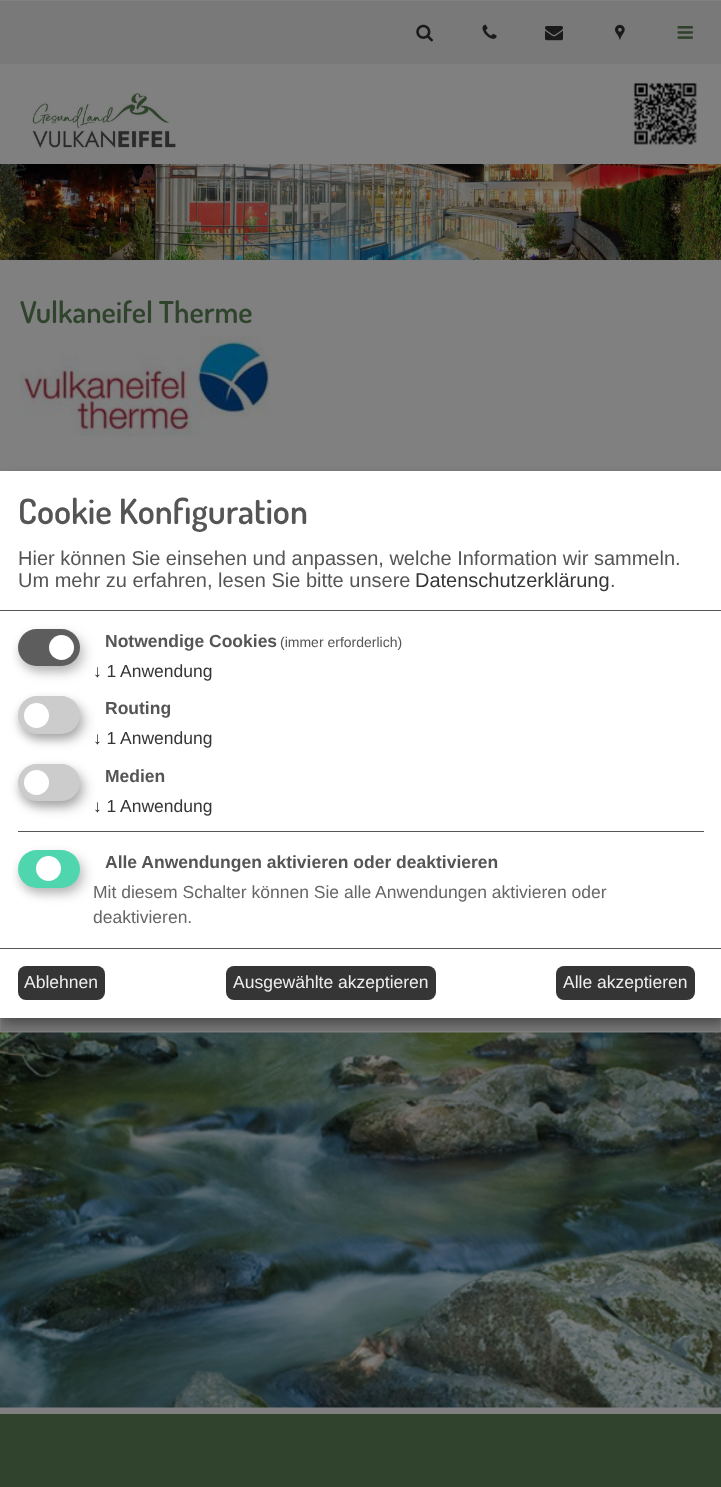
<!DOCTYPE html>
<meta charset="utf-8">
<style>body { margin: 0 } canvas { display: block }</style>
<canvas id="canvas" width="721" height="1487"></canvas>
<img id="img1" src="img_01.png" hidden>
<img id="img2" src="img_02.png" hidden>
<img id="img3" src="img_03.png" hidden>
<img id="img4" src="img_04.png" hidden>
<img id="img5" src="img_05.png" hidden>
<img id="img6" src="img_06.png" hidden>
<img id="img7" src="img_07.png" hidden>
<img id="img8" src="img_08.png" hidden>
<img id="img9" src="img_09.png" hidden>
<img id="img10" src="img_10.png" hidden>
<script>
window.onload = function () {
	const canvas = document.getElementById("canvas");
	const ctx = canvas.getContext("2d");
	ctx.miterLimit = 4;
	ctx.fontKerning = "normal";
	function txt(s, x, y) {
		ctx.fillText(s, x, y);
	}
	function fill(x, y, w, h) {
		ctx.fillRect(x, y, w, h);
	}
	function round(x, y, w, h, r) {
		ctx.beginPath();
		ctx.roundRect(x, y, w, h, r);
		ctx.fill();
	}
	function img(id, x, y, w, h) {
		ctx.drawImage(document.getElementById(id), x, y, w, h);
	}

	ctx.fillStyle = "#808080";
	fill(0, 0, 721, 1487);
	ctx.fillStyle = "#797979";
	fill(0, 1, 721, 63);
	img("img1", 416, 24, 17, 18);
	img("img2", 482, 24, 15, 15);
	img("img3", 545, 26, 18, 15);
	img("img4", 615, 24, 10, 17);
	img("img5", 677, 26, 16, 13);
	img("img6", 32, 93, 144, 55);
	img("img7", 633, 82, 64, 63);
	img("img8", 0, 164, 721, 96);
	img("img9", 20, 336, 250, 101);
	ctx.fillStyle = "#777777";
	fill(1, 1018, 719, 13);
	img("img10", 0, 1032, 721, 376);
	ctx.fillStyle = "rgba(0, 0, 0, 0.19)";
	ctx.filter = "blur(6px)";
	ctx.beginPath();
	ctx.rect(6, 478, 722, 546);
	ctx.fill();
	ctx.filter = "none";
	ctx.fillStyle = "rgba(0, 0, 0, 0.2)";
	ctx.filter = "blur(4px)";
	ctx.beginPath();
	ctx.rect(0, 476, 721, 547);
	ctx.fill();
	ctx.filter = "none";
	ctx.fillStyle = "#FFFFFF";
	fill(0, 471, 721, 547);
	ctx.fillStyle = "#555555";
	fill(0, 610, 721, 1);
	ctx.fillStyle = "rgba(51, 51, 51, 0.19)";
	ctx.filter = "blur(6px)";
	ctx.beginPath();
	ctx.roundRect(24, 635, 62, 38, 19);
	ctx.fill();
	ctx.filter = "none";
	ctx.fillStyle = "rgba(51, 51, 51, 0.2)";
	ctx.filter = "blur(4px)";
	ctx.beginPath();
	ctx.roundRect(18, 634, 62, 37, 18.5);
	ctx.fill();
	ctx.filter = "none";
	ctx.fillStyle = "#5D5D5D";
	round(18, 629, 62, 37, 18.5);
	ctx.fillStyle = "#FFFFFF";
	ctx.beginPath();
	ctx.arc(61.5, 647.5, 12.5, 0, Math.PI * 2);
	ctx.fill();
	ctx.fillStyle = "rgba(0, 0, 0, 0.19)";
	ctx.filter = "blur(6px)";
	ctx.beginPath();
	ctx.roundRect(24, 703, 62, 37, 18.5);
	ctx.fill();
	ctx.filter = "none";
	ctx.fillStyle = "rgba(0, 0, 0, 0.2)";
	ctx.filter = "blur(4px)";
	ctx.beginPath();
	ctx.roundRect(18, 701, 62, 38, 19);
	ctx.fill();
	ctx.filter = "none";
	ctx.fillStyle = "#CCCCCC";
	round(18, 696, 62, 38, 19);
	ctx.fillStyle = "#FFFFFF";
	ctx.beginPath();
	ctx.arc(36.5, 715.5, 12.5, 0, Math.PI * 2);
	ctx.fill();
	ctx.fillStyle = "rgba(0, 0, 0, 0.19)";
	ctx.filter = "blur(6px)";
	ctx.beginPath();
	ctx.roundRect(24, 770, 62, 38, 19);
	ctx.fill();
	ctx.filter = "none";
	ctx.fillStyle = "rgba(0, 0, 0, 0.2)";
	ctx.filter = "blur(4px)";
	ctx.beginPath();
	ctx.roundRect(18, 769, 62, 37, 18.5);
	ctx.fill();
	ctx.filter = "none";
	ctx.fillStyle = "#CCCCCC";
	round(18, 764, 62, 37, 18.5);
	ctx.fillStyle = "#FFFFFF";
	ctx.beginPath();
	ctx.arc(36.5, 782.5, 12.5, 0, Math.PI * 2);
	ctx.fill();
	ctx.fillStyle = "#555555";
	fill(18, 831, 686, 1);
	ctx.fillStyle = "rgba(0, 0, 0, 0.15)";
	ctx.filter = "blur(6px)";
	ctx.beginPath();
	ctx.roundRect(24, 856, 62, 38, 19);
	ctx.fill();
	ctx.filter = "none";
	ctx.fillStyle = "rgba(51, 51, 51, 0.2)";
	ctx.filter = "blur(4px)";
	ctx.beginPath();
	ctx.roundRect(18, 855, 62, 38, 19);
	ctx.fill();
	ctx.filter = "none";
	ctx.fillStyle = "#50D6AE";
	round(18, 850, 62, 38, 19);
	ctx.fillStyle = "#FFFFFF";
	ctx.beginPath();
	ctx.arc(48.5, 868.5, 12.5, 0, Math.PI * 2);
	ctx.fill();
	ctx.fillStyle = "#555555";
	fill(0, 948, 721, 1);
	ctx.fillStyle = "#353535";
	round(18, 966, 87, 34, 8);
	round(226, 966, 210, 34, 8);
	round(556, 966, 139, 34, 8);
	ctx.fillStyle = "#30432D";
	fill(0, 1414, 721, 73);
	ctx.font = "600 30px Dosis";
	txt("Vulkaneifel Therme", 20, 323);
	ctx.font = "600 35px Dosis";
	ctx.fillStyle = "#555555";
	txt("Cookie Konfiguration", 18, 524);
	ctx.font = "20px Liberation Sans";
	txt("Hier können Sie einsehen und anpassen, welche Information wir sammeln.", 18, 565);
	txt("Um mehr zu erfahren, lesen Sie bitte unsere", 18, 587);
	ctx.fillStyle = "#353535";
	txt("Datenschutzerklärung", 415, 587);
	ctx.fillStyle = "#555555";
	txt(".", 610, 587);
	ctx.font = "bold 17.5px Liberation Sans";
	txt("Notwendige Cookies", 105, 647);
	ctx.font = "14px Liberation Sans";
	txt("(immer erforderlich)", 280, 647);
	ctx.font = "17.5px Liberation Sans";
	ctx.fillStyle = "#353535";
	txt("↓ 1", 93, 677);
	txt("Anwendung", 120, 677);
	ctx.font = "bold 17.5px Liberation Sans";
	ctx.fillStyle = "#555555";
	txt("Routing", 105, 714);
	ctx.font = "17.5px Liberation Sans";
	ctx.fillStyle = "#353535";
	txt("↓ 1", 93, 744);
	txt("Anwendung", 120, 744);
	ctx.font = "bold 17.5px Liberation Sans";
	ctx.fillStyle = "#555555";
	txt("Medien", 105, 782);
	ctx.font = "17.5px Liberation Sans";
	ctx.fillStyle = "#353535";
	txt("↓ 1", 93, 812);
	txt("Anwendung", 120, 812);
	ctx.font = "bold 17.5px Liberation Sans";
	ctx.fillStyle = "#555555";
	txt("Alle Anwendungen aktivieren oder deaktivieren", 105, 868);
	ctx.font = "17.5px Liberation Sans";
	ctx.fillStyle = "#666666";
	txt("Mit diesem Schalter können Sie alle Anwendungen aktivieren oder", 93, 898);
	txt("deaktivieren.", 93, 923);
	ctx.fillStyle = "#EEEEEE";
	txt("Ablehnen", 24, 988);
	txt("Ausgewählte akzeptieren", 233, 988);
	txt("Alle akzeptieren", 563, 988);
};
</script>
